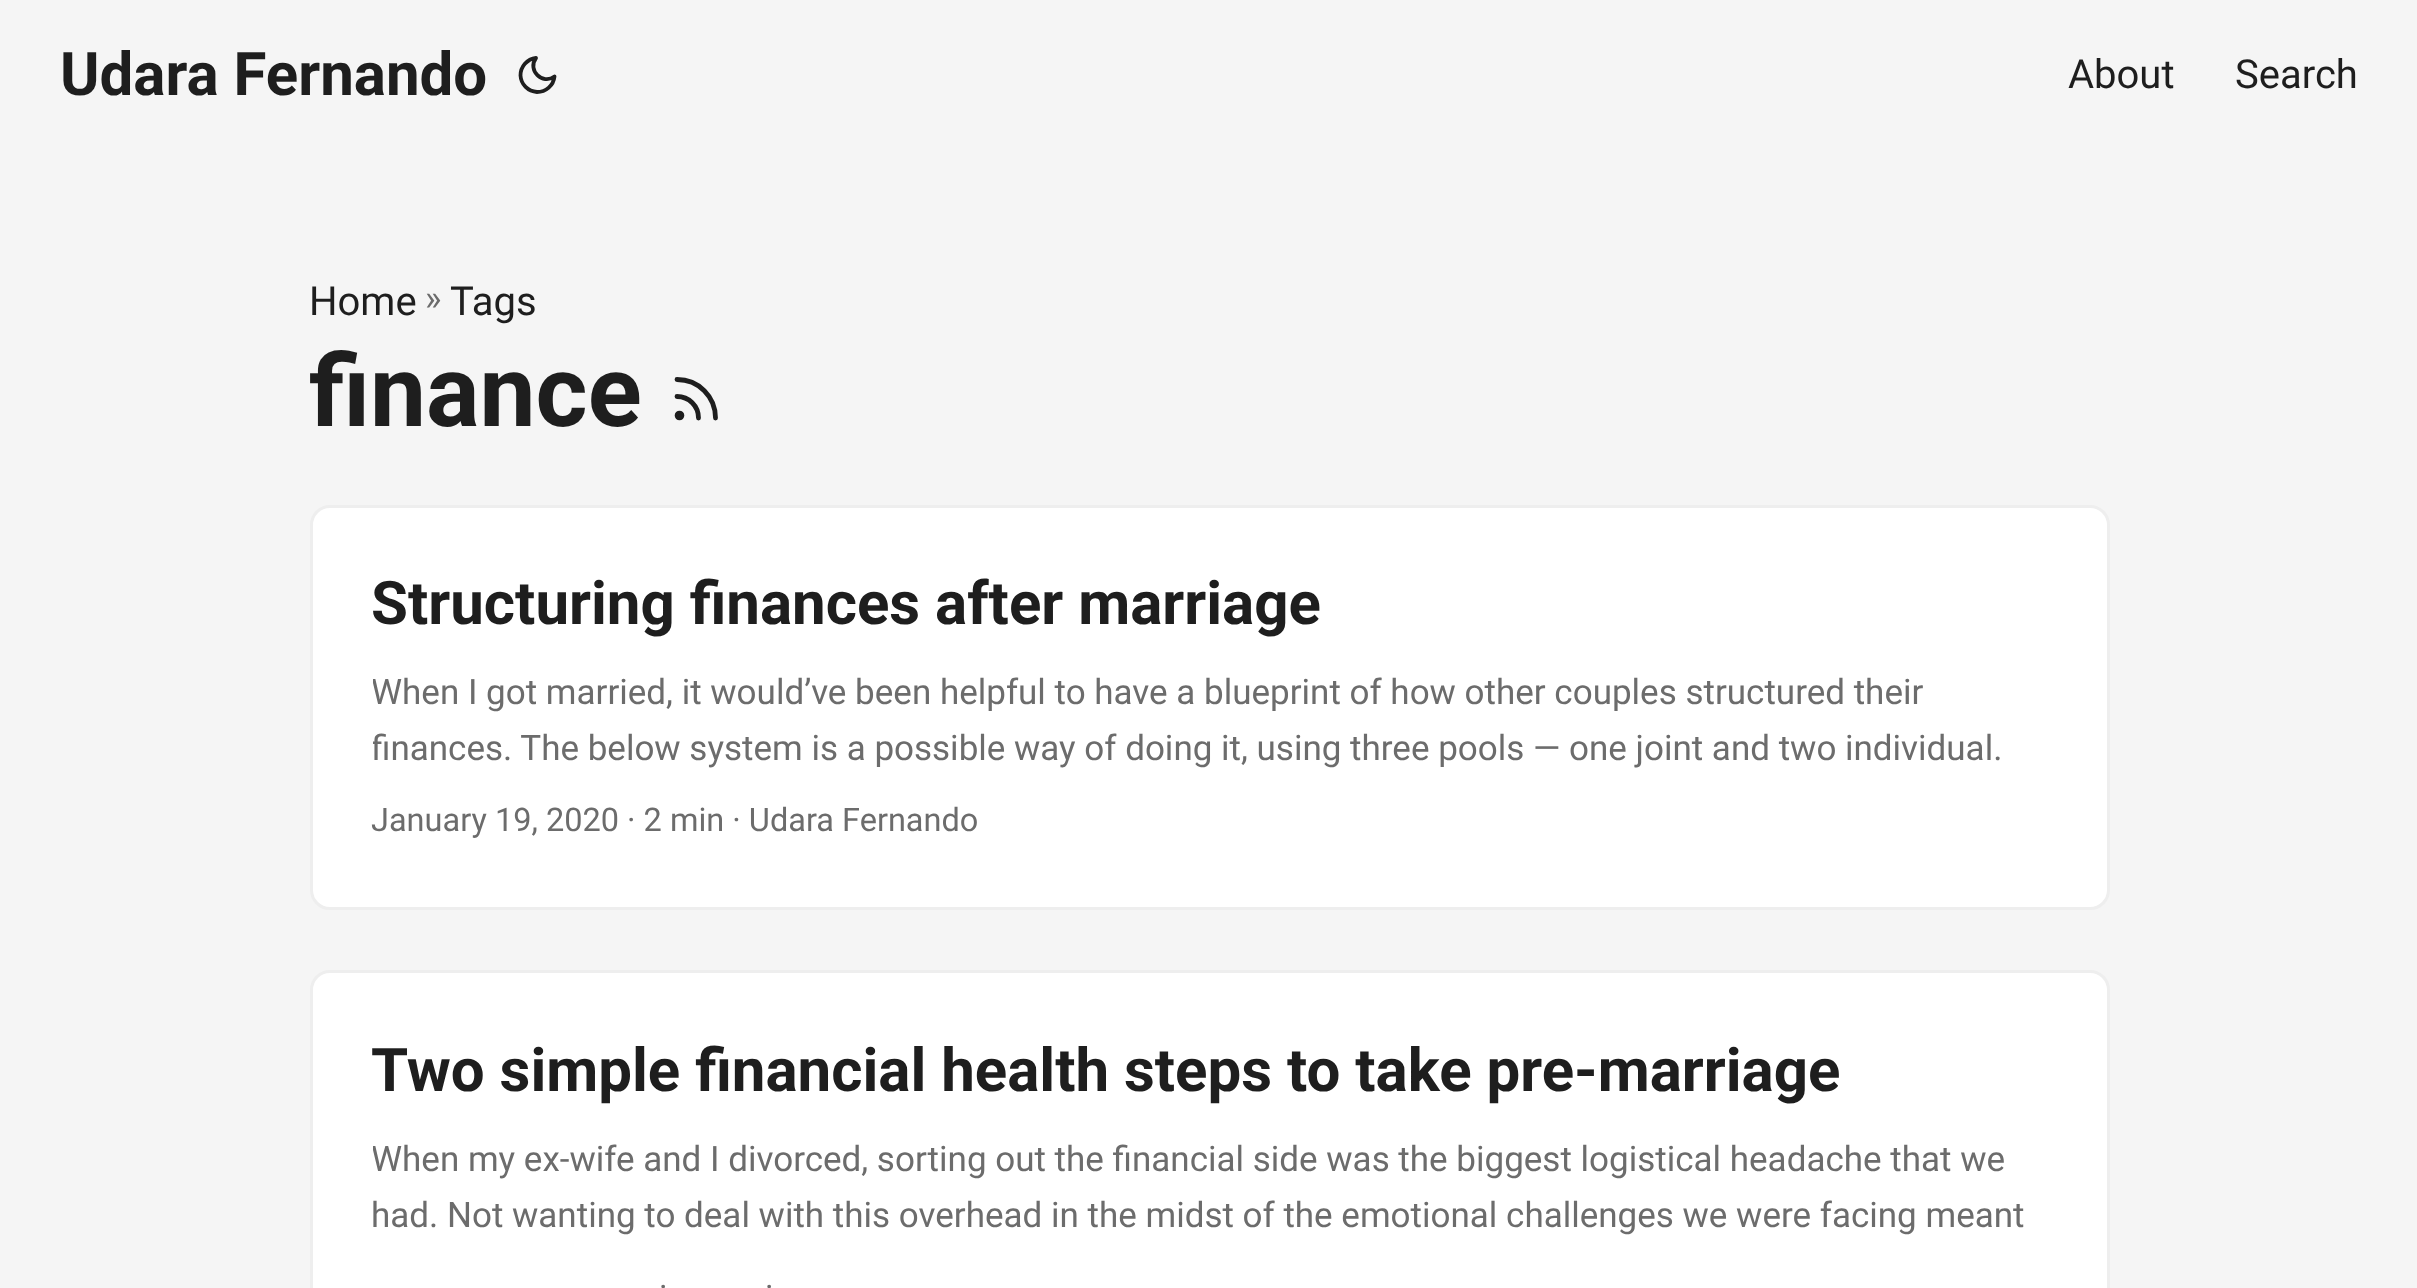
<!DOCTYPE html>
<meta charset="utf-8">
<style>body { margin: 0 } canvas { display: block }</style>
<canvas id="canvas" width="2417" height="1288"></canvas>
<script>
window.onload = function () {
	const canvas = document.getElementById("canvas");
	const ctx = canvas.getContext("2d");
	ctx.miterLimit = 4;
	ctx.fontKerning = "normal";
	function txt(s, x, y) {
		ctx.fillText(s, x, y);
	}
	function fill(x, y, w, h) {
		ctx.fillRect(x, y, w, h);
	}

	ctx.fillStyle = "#F5F5F5";
	fill(0, 0, 2417, 1288);
	ctx.beginPath();
	ctx.moveTo(554.5, 76.5);
	ctx.bezierCurveTo(553.5, 85.5, 546, 92, 537, 92);
	ctx.bezierCurveTo(528, 91.5, 521, 84.5, 520.5, 75.5);
	ctx.bezierCurveTo(520.5, 66.5, 527, 59, 536, 58);
	ctx.bezierCurveTo(527, 70, 542.5, 85.5, 554.5, 76.5);
	ctx.closePath();
	ctx.strokeStyle = "#1E1E1E";
	ctx.lineWidth = 3.8;
	ctx.lineCap = "round";
	ctx.lineJoin = "round";
	ctx.stroke();
	ctx.beginPath();
	ctx.moveTo(677, 396.5);
	ctx.bezierCurveTo(689, 396.5, 698.5, 406, 698.5, 418);
	ctx.moveTo(677, 379.5);
	ctx.bezierCurveTo(698.5, 379.5, 715.5, 396.5, 715.5, 418);
	ctx.lineWidth = 4.8;
	ctx.stroke();
	ctx.beginPath();
	ctx.arc(679.5, 415.5, 2.4, 0, Math.PI * 2);
	ctx.stroke();
	ctx.fillStyle = "#FFFFFF";
	ctx.beginPath();
	ctx.roundRect(311.5, 506.5, 1797, 402, 18.5);
	ctx.fill();
	ctx.strokeStyle = "#EEEEEE";
	ctx.lineWidth = 3;
	ctx.lineJoin = "miter";
	ctx.stroke();
	ctx.beginPath();
	ctx.roundRect(311.5, 971.5, 1797, 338, 18.5);
	ctx.fill();
	ctx.stroke();
	ctx.font = "bold 60px Roboto";
	ctx.fillStyle = "#1E1E1E";
	txt("Udara Fernando", 60, 95);
	ctx.font = "40px Roboto";
	txt("About", 2068, 88);
	txt("Search", 2235, 88);
	txt("Home", 309, 315);
	ctx.font = "35px Roboto";
	ctx.fillStyle = "#6C6C6C";
	txt("»", 425, 310);
	ctx.font = "40px Roboto";
	ctx.fillStyle = "#1E1E1E";
	txt("Tags", 450, 315);
	ctx.font = "bold 100px Roboto";
	txt("finance", 309, 426);
	ctx.font = "bold 60px Roboto";
	txt("Structuring finances after marriage", 371, 624);
	ctx.save();
	ctx.beginPath();
	ctx.rect(373, 665, 1675, 113);
	ctx.clip();
	ctx.font = "35px Roboto";
	ctx.fillStyle = "#6C6C6C";
	txt("When I got married, it would’ve been helpful to have a blueprint of how other couples structured their", 371, 704);
	txt("finances. The below system is a possible way of doing it, using three pools — one joint and two individual.", 371, 760);
	ctx.restore();
	ctx.font = "32.5px Roboto";
	ctx.fillStyle = "#6C6C6C";
	txt("January 19, 2020 · 2 min · Udara Fernando", 371, 831);
	ctx.font = "bold 60px Roboto";
	ctx.fillStyle = "#1E1E1E";
	txt("Two simple financial health steps to take pre-marriage", 371, 1091);
	ctx.save();
	ctx.beginPath();
	ctx.rect(373, 1133, 1675, 110);
	ctx.clip();
	ctx.font = "35px Roboto";
	ctx.fillStyle = "#6C6C6C";
	txt("When my ex-wife and I divorced, sorting out the financial side was the biggest logistical headache that we", 371, 1171);
	ctx.restore();
	ctx.font = "35px Roboto";
	ctx.fillStyle = "#6C6C6C";
	txt("had. Not wanting to deal with this overhead in the midst of the emotional challenges we were facing meant", 371, 1227);
	ctx.font = "32.5px Roboto";
	txt("·", 659, 1298);
	txt("·", 765, 1298);
};
</script>
